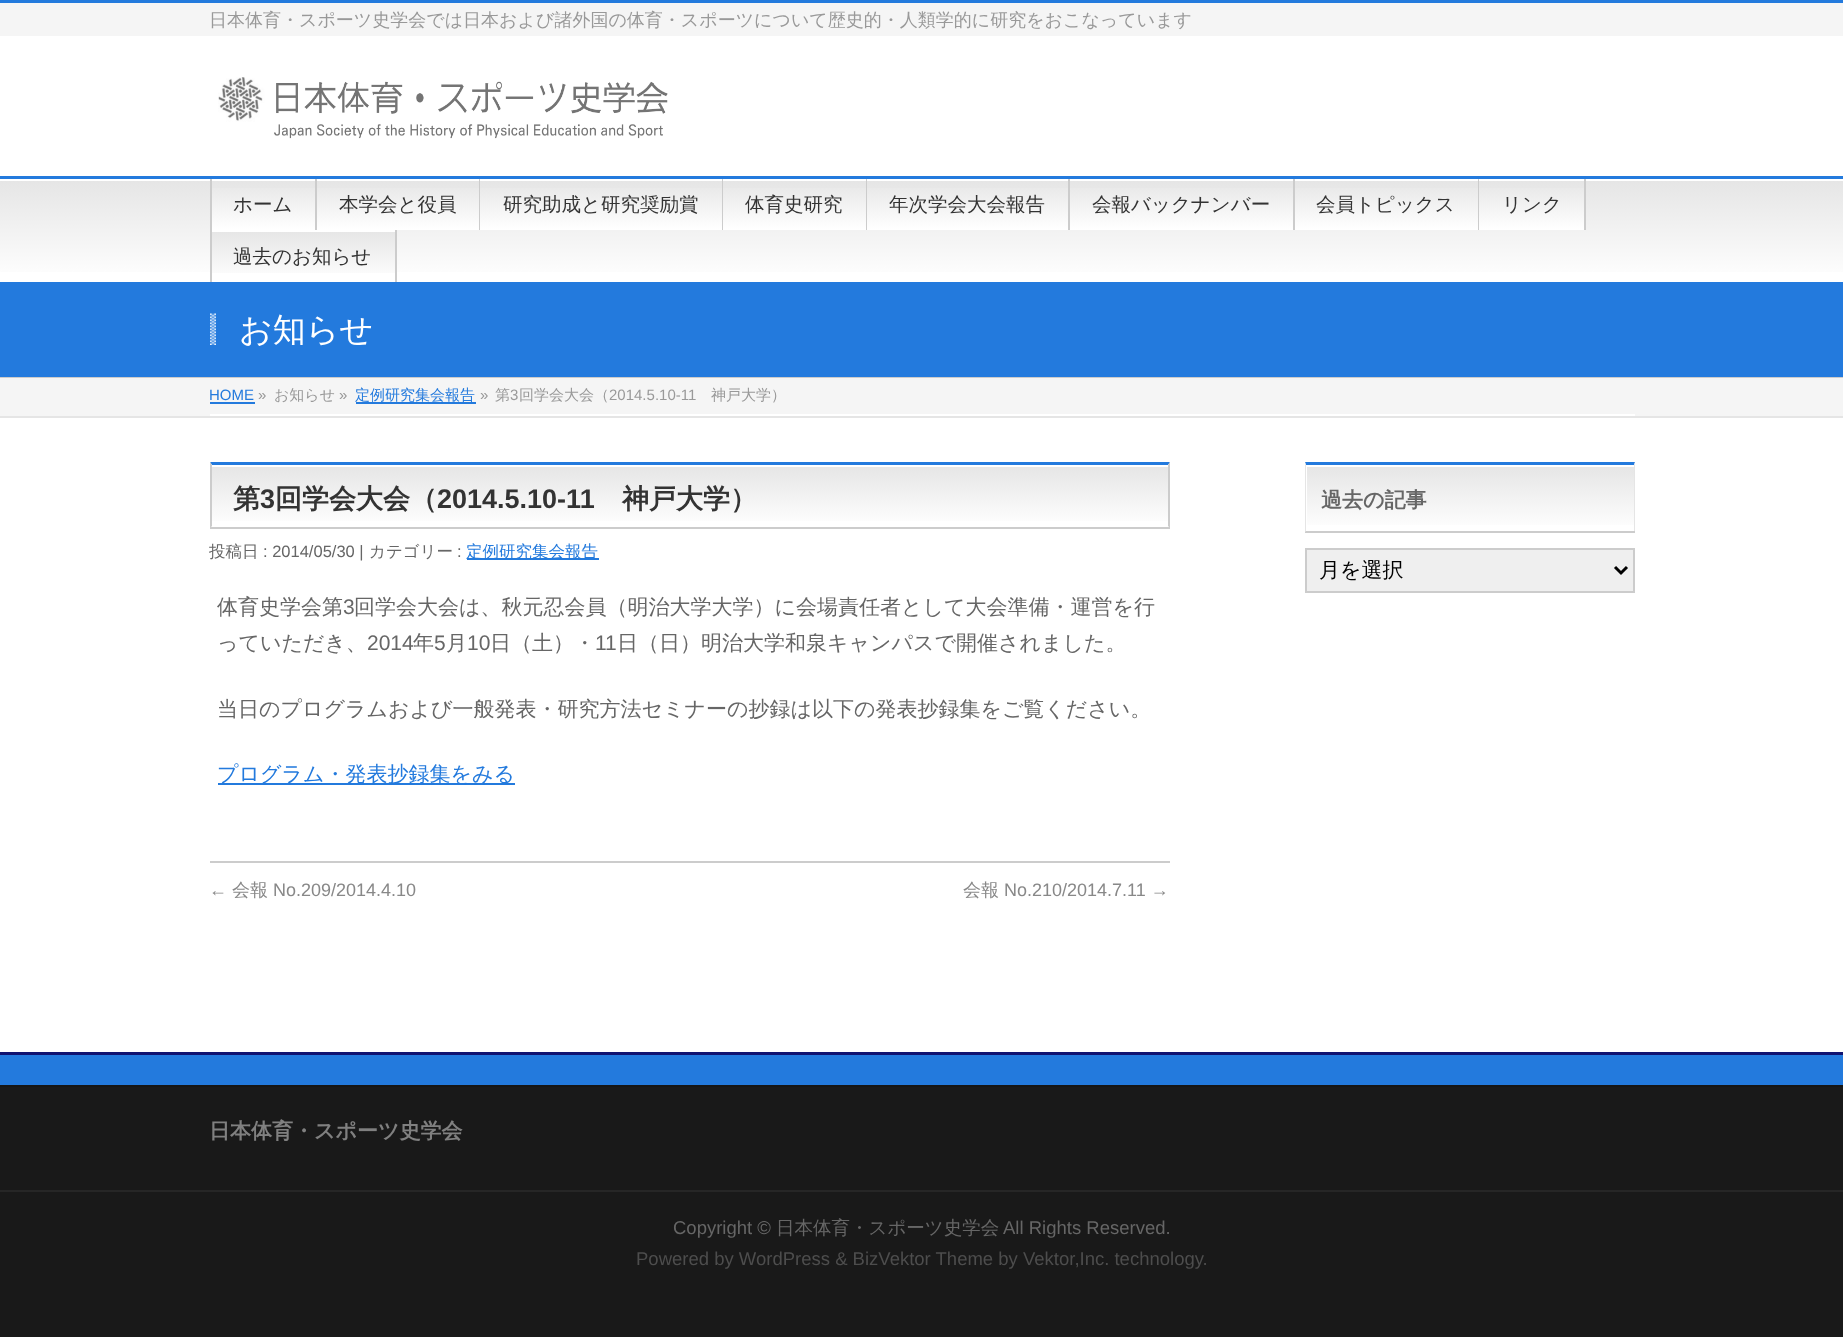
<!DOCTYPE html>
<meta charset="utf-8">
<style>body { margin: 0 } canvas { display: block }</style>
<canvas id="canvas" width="1843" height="1338"></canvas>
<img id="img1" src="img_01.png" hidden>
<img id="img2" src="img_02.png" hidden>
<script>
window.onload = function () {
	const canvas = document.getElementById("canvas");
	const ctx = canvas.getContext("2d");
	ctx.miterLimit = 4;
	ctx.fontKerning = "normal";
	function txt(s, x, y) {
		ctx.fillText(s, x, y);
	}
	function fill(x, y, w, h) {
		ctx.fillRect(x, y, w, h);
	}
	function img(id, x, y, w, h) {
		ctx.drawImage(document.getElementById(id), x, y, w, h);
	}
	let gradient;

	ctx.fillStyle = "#FFFFFF";
	fill(0, 0, 1843, 1338);
	ctx.fillStyle = "#F5F5F5";
	fill(0, 3, 1843, 33);
	ctx.fillStyle = "#237ADD";
	fill(0, 0, 1843, 3);
	img("img1", 218, 77, 450, 62);
	gradient = ctx.createLinearGradient(0, 179, 0, 282);
	gradient.addColorStop(0, "#E5E5E5");
	gradient.addColorStop(1, "#FFFFFF");
	ctx.fillStyle = gradient;
	fill(0, 181, 1843, 91);
	ctx.fillStyle = "#237ADD";
	fill(0, 176, 1843, 3);
	ctx.fillStyle = "#CCCCCC";
	fill(210, 179, 2, 103);
	gradient = ctx.createLinearGradient(212, 179, 212, 230);
	gradient.addColorStop(0, "#E5E5E5");
	gradient.addColorStop(1, "#FFFFFF");
	ctx.fillStyle = gradient;
	fill(212, 188, 103, 42);
	ctx.fillStyle = "#CCCCCC";
	fill(315, 179, 2, 51);
	gradient = ctx.createLinearGradient(317, 179, 317, 230);
	gradient.addColorStop(0, "#E5E5E5");
	gradient.addColorStop(1, "#FFFFFF");
	ctx.fillStyle = gradient;
	fill(317, 188, 162, 42);
	ctx.fillStyle = "#CCCCCC";
	fill(479, 179, 1, 51);
	gradient = ctx.createLinearGradient(480, 179, 480, 230);
	gradient.addColorStop(0, "#E5E5E5");
	gradient.addColorStop(1, "#FFFFFF");
	ctx.fillStyle = gradient;
	fill(480, 188, 242, 42);
	ctx.fillStyle = "#CCCCCC";
	fill(722, 179, 1, 51);
	gradient = ctx.createLinearGradient(723, 179, 723, 230);
	gradient.addColorStop(0, "#E5E5E5");
	gradient.addColorStop(1, "#FFFFFF");
	ctx.fillStyle = gradient;
	fill(723, 188, 143, 42);
	ctx.fillStyle = "#CCCCCC";
	fill(866, 179, 1, 51);
	gradient = ctx.createLinearGradient(867, 179, 867, 230);
	gradient.addColorStop(0, "#E5E5E5");
	gradient.addColorStop(1, "#FFFFFF");
	ctx.fillStyle = gradient;
	fill(867, 188, 201, 42);
	ctx.fillStyle = "#CCCCCC";
	fill(1068, 179, 2, 51);
	gradient = ctx.createLinearGradient(1070, 179, 1070, 230);
	gradient.addColorStop(0, "#E5E5E5");
	gradient.addColorStop(1, "#FFFFFF");
	ctx.fillStyle = gradient;
	fill(1070, 188, 223, 42);
	ctx.fillStyle = "#CCCCCC";
	fill(1293, 179, 2, 51);
	gradient = ctx.createLinearGradient(1295, 179, 1295, 230);
	gradient.addColorStop(0, "#E5E5E5");
	gradient.addColorStop(1, "#FFFFFF");
	ctx.fillStyle = gradient;
	fill(1295, 188, 183, 42);
	ctx.fillStyle = "#CCCCCC";
	fill(1478, 179, 1, 51);
	gradient = ctx.createLinearGradient(1479, 179, 1479, 230);
	gradient.addColorStop(0, "#E5E5E5");
	gradient.addColorStop(1, "#FFFFFF");
	ctx.fillStyle = gradient;
	fill(1479, 188, 105, 42);
	ctx.fillStyle = "#CCCCCC";
	fill(1584, 179, 2, 51);
	gradient = ctx.createLinearGradient(212, 230, 212, 282);
	gradient.addColorStop(0, "#E5E5E5");
	gradient.addColorStop(1, "#FFFFFF");
	ctx.fillStyle = gradient;
	fill(212, 232, 183, 41);
	ctx.fillStyle = "#FFFFFF";
	fill(212, 230, 183, 2);
	ctx.fillStyle = "#CCCCCC";
	fill(395, 230, 2, 52);
	ctx.fillStyle = "#237ADD";
	fill(0, 282, 1843, 95);
	ctx.fillStyle = "#CCCCCC";
	fill(0, 377, 1843, 1);
	img("img2", 210, 313, 6, 32);
	ctx.fillStyle = "#F5F5F5";
	fill(0, 378, 1843, 38);
	ctx.fillStyle = "#E5E5E5";
	fill(0, 416, 1843, 2);
	ctx.fillStyle = "#FFFFFF";
	fill(210, 414, 1425, 2);
	ctx.fillStyle = "#237ADD";
	fill(210, 402, 45, 2);
	fill(356, 402, 120, 2);
	gradient = ctx.createLinearGradient(212, 465, 212, 527);
	gradient.addColorStop(0, "#E5E5E5");
	gradient.addColorStop(1, "#FFFFFF");
	ctx.fillStyle = gradient;
	fill(212, 467, 957, 54);
	ctx.fillStyle = "#237ADD";
	ctx.beginPath();
	ctx.moveTo(210, 462);
	ctx.lineTo(1170, 462);
	ctx.lineTo(1168, 465);
	ctx.lineTo(212, 465);
	ctx.closePath();
	ctx.fill();
	ctx.fillStyle = "#CCCCCC";
	ctx.beginPath();
	ctx.moveTo(1170, 462);
	ctx.lineTo(1170, 528);
	ctx.lineTo(1168, 526);
	ctx.lineTo(1168, 465);
	ctx.closePath();
	ctx.fill();
	fill(210, 527, 960, 2);
	ctx.beginPath();
	ctx.moveTo(210, 528);
	ctx.lineTo(210, 462);
	ctx.lineTo(212, 465);
	ctx.lineTo(212, 526);
	ctx.closePath();
	ctx.fill();
	ctx.fillStyle = "#237ADD";
	fill(467, 558, 132, 2);
	fill(218, 783, 297, 2);
	ctx.fillStyle = "#CCCCCC";
	fill(210, 861, 960, 2);
	gradient = ctx.createLinearGradient(1307, 465, 1307, 531);
	gradient.addColorStop(0, "#E5E5E5");
	gradient.addColorStop(1, "#FFFFFF");
	ctx.fillStyle = gradient;
	fill(1307, 467, 327, 58);
	ctx.fillStyle = "#237ADD";
	ctx.beginPath();
	ctx.moveTo(1305, 462);
	ctx.lineTo(1635, 462);
	ctx.lineTo(1634, 465);
	ctx.lineTo(1306, 465);
	ctx.closePath();
	ctx.fill();
	ctx.fillStyle = "#E5E5E5";
	ctx.beginPath();
	ctx.moveTo(1635, 462);
	ctx.lineTo(1635, 532);
	ctx.lineTo(1634, 531);
	ctx.lineTo(1634, 465);
	ctx.closePath();
	ctx.fill();
	ctx.fillStyle = "#CCCCCC";
	fill(1305, 531, 330, 2);
	ctx.fillStyle = "#E5E5E5";
	ctx.beginPath();
	ctx.moveTo(1305, 532);
	ctx.lineTo(1305, 462);
	ctx.lineTo(1306, 465);
	ctx.lineTo(1306, 531);
	ctx.closePath();
	ctx.fill();
	ctx.fillStyle = "#EFEFEF";
	ctx.beginPath();
	ctx.rect(1306, 549, 328, 43);
	ctx.fill();
	ctx.strokeStyle = "#CCCCCC";
	ctx.lineWidth = 2;
	ctx.stroke();
	ctx.beginPath();
	ctx.moveTo(1615, 567);
	ctx.lineTo(1621, 573);
	ctx.lineTo(1627, 567);
	ctx.strokeStyle = "#000000";
	ctx.lineWidth = 3;
	ctx.stroke();
	ctx.fillStyle = "#237ADD";
	fill(0, 1055, 1843, 30);
	ctx.fillStyle = "#111370";
	fill(0, 1052, 1843, 3);
	ctx.fillStyle = "#191919";
	fill(0, 1087, 1843, 103);
	ctx.fillStyle = "#151515";
	fill(0, 1085, 1843, 2);
	ctx.fillStyle = "#191919";
	fill(0, 1192, 1843, 145);
	ctx.fillStyle = "#262626";
	fill(0, 1190, 1843, 2);
	ctx.font = "500 18px WenQuanYi Zen Hei";
	ctx.fillStyle = "#999999";
	txt("日本体育・スポーツ史学会では日本および諸外国の体育・スポーツについて歴史的・人類学的に研究をおこなっています", 209, 26);
	ctx.font = "500 19.5px WenQuanYi Zen Hei";
	ctx.fillStyle = "#333333";
	txt("ホーム", 233, 211);
	txt("本学会と役員", 339, 211);
	txt("研究助成と研究奨励賞", 503, 211);
	txt("体育史研究", 745, 211);
	txt("年次学会大会報告", 889, 211);
	txt("会報バックナンバー", 1092, 211);
	txt("会員トピックス", 1316, 211);
	txt("リンク", 1502, 211);
	txt("過去のお知らせ", 233, 263);
	ctx.font = "500 33px WenQuanYi Zen Hei";
	ctx.fillStyle = "#FFFFFF";
	txt("お知らせ", 239, 341);
	ctx.font = "15px Liberation Sans";
	ctx.fillStyle = "#237ADD";
	txt("HOME", 209, 400);
	ctx.fillStyle = "#999999";
	txt("»", 258, 400);
	ctx.font = "500 15px WenQuanYi Zen Hei";
	txt("お知らせ", 274, 400);
	ctx.font = "15px Liberation Sans";
	txt("»", 339, 400);
	ctx.font = "500 15px WenQuanYi Zen Hei";
	ctx.fillStyle = "#237ADD";
	txt("定例研究集会報告", 355, 400);
	ctx.font = "15px Liberation Sans";
	ctx.fillStyle = "#999999";
	txt("»", 480, 400);
	ctx.font = "500 15px WenQuanYi Zen Hei";
	txt("第", 495, 400);
	ctx.font = "15px Liberation Sans";
	txt("3", 510, 400);
	ctx.font = "500 15px WenQuanYi Zen Hei";
	txt("回学会大会（", 519, 400);
	ctx.font = "15px Liberation Sans";
	txt("2014.5.10-11", 609, 400);
	ctx.font = "500 15px WenQuanYi Zen Hei";
	txt("神戸大学）", 711, 400);
	ctx.font = "bold 27px WenQuanYi Zen Hei";
	ctx.fillStyle = "#333333";
	txt("第", 233, 508);
	ctx.font = "bold 27px Liberation Sans";
	txt("3", 260, 508);
	ctx.font = "bold 27px WenQuanYi Zen Hei";
	txt("回学会大会（", 275, 508);
	ctx.font = "bold 27px Liberation Sans";
	txt("2014.5.10-11", 437, 508);
	ctx.font = "bold 27px WenQuanYi Zen Hei";
	txt("神戸大学）", 622, 508);
	ctx.font = "500 16.5px WenQuanYi Zen Hei";
	ctx.fillStyle = "#666666";
	txt("投稿日", 209, 557);
	ctx.font = "16.5px Liberation Sans";
	txt(": 2014/05/30 |", 263, 557);
	ctx.font = "500 16.5px WenQuanYi Zen Hei";
	txt("カテゴリー", 369, 557);
	ctx.font = "16.5px Liberation Sans";
	txt(":", 457, 557);
	ctx.font = "500 16.5px WenQuanYi Zen Hei";
	ctx.fillStyle = "#237ADD";
	txt("定例研究集会報告", 466, 557);
	ctx.font = "500 21px WenQuanYi Zen Hei";
	ctx.fillStyle = "#666666";
	txt("体育史学会第", 217, 614);
	ctx.font = "21px Liberation Sans";
	txt("3", 343, 614);
	ctx.font = "500 21px WenQuanYi Zen Hei";
	txt("回学会大会は、秋元忍会員（明治大学大学）に会場責任者として大会準備・運営を行", 354, 614);
	txt("っていただき、", 217, 650);
	ctx.font = "21px Liberation Sans";
	txt("2014", 367, 650);
	ctx.font = "500 21px WenQuanYi Zen Hei";
	txt("年", 413, 650);
	ctx.font = "21px Liberation Sans";
	txt("5", 434, 650);
	ctx.font = "500 21px WenQuanYi Zen Hei";
	txt("月", 446, 650);
	ctx.font = "21px Liberation Sans";
	txt("10", 467, 650);
	ctx.font = "500 21px WenQuanYi Zen Hei";
	txt("日（土）・", 490, 650);
	ctx.font = "21px Liberation Sans";
	txt("11", 595, 650);
	ctx.font = "500 21px WenQuanYi Zen Hei";
	txt("日（日）明治大学和泉キャンパスで開催されました。", 617, 650);
	txt("当日のプログラムおよび一般発表・研究方法セミナーの抄録は以下の発表抄録集をご覧ください。", 217, 716);
	ctx.fillStyle = "#237ADD";
	txt("プログラム・発表抄録集をみる", 217, 781);
	ctx.font = "18px Liberation Sans";
	ctx.fillStyle = "#888888";
	txt("←", 209, 896);
	ctx.font = "500 18px WenQuanYi Zen Hei";
	txt("会報", 232, 896);
	ctx.font = "18px Liberation Sans";
	txt("No.209/2014.4.10", 273, 896);
	ctx.font = "500 18px WenQuanYi Zen Hei";
	txt("会報", 963, 896);
	ctx.font = "18px Liberation Sans";
	txt("No.210/2014.7.11 →", 1004, 896);
	ctx.font = "bold 21px WenQuanYi Zen Hei";
	ctx.fillStyle = "#666666";
	txt("過去の記事", 1321, 507);
	ctx.font = "500 21px WenQuanYi Zen Hei";
	ctx.fillStyle = "#000000";
	txt("月を選択", 1319, 577);
	ctx.font = "bold 21px WenQuanYi Zen Hei";
	ctx.fillStyle = "#808080";
	txt("日本体育・スポーツ史学会", 209, 1138);
	ctx.font = "18.5px Liberation Sans";
	ctx.fillStyle = "#666666";
	txt("Copyright ©", 673, 1234);
	ctx.font = "500 18.5px WenQuanYi Zen Hei";
	txt("日本体育・スポーツ史学会", 776, 1234);
	ctx.font = "18.5px Liberation Sans";
	txt("All Rights Reserved.", 1003, 1234);
	ctx.fillStyle = "#4D4D4D";
	txt("Powered by WordPress & BizVektor Theme by Vektor,Inc. technology.", 636, 1265);
};
</script>
